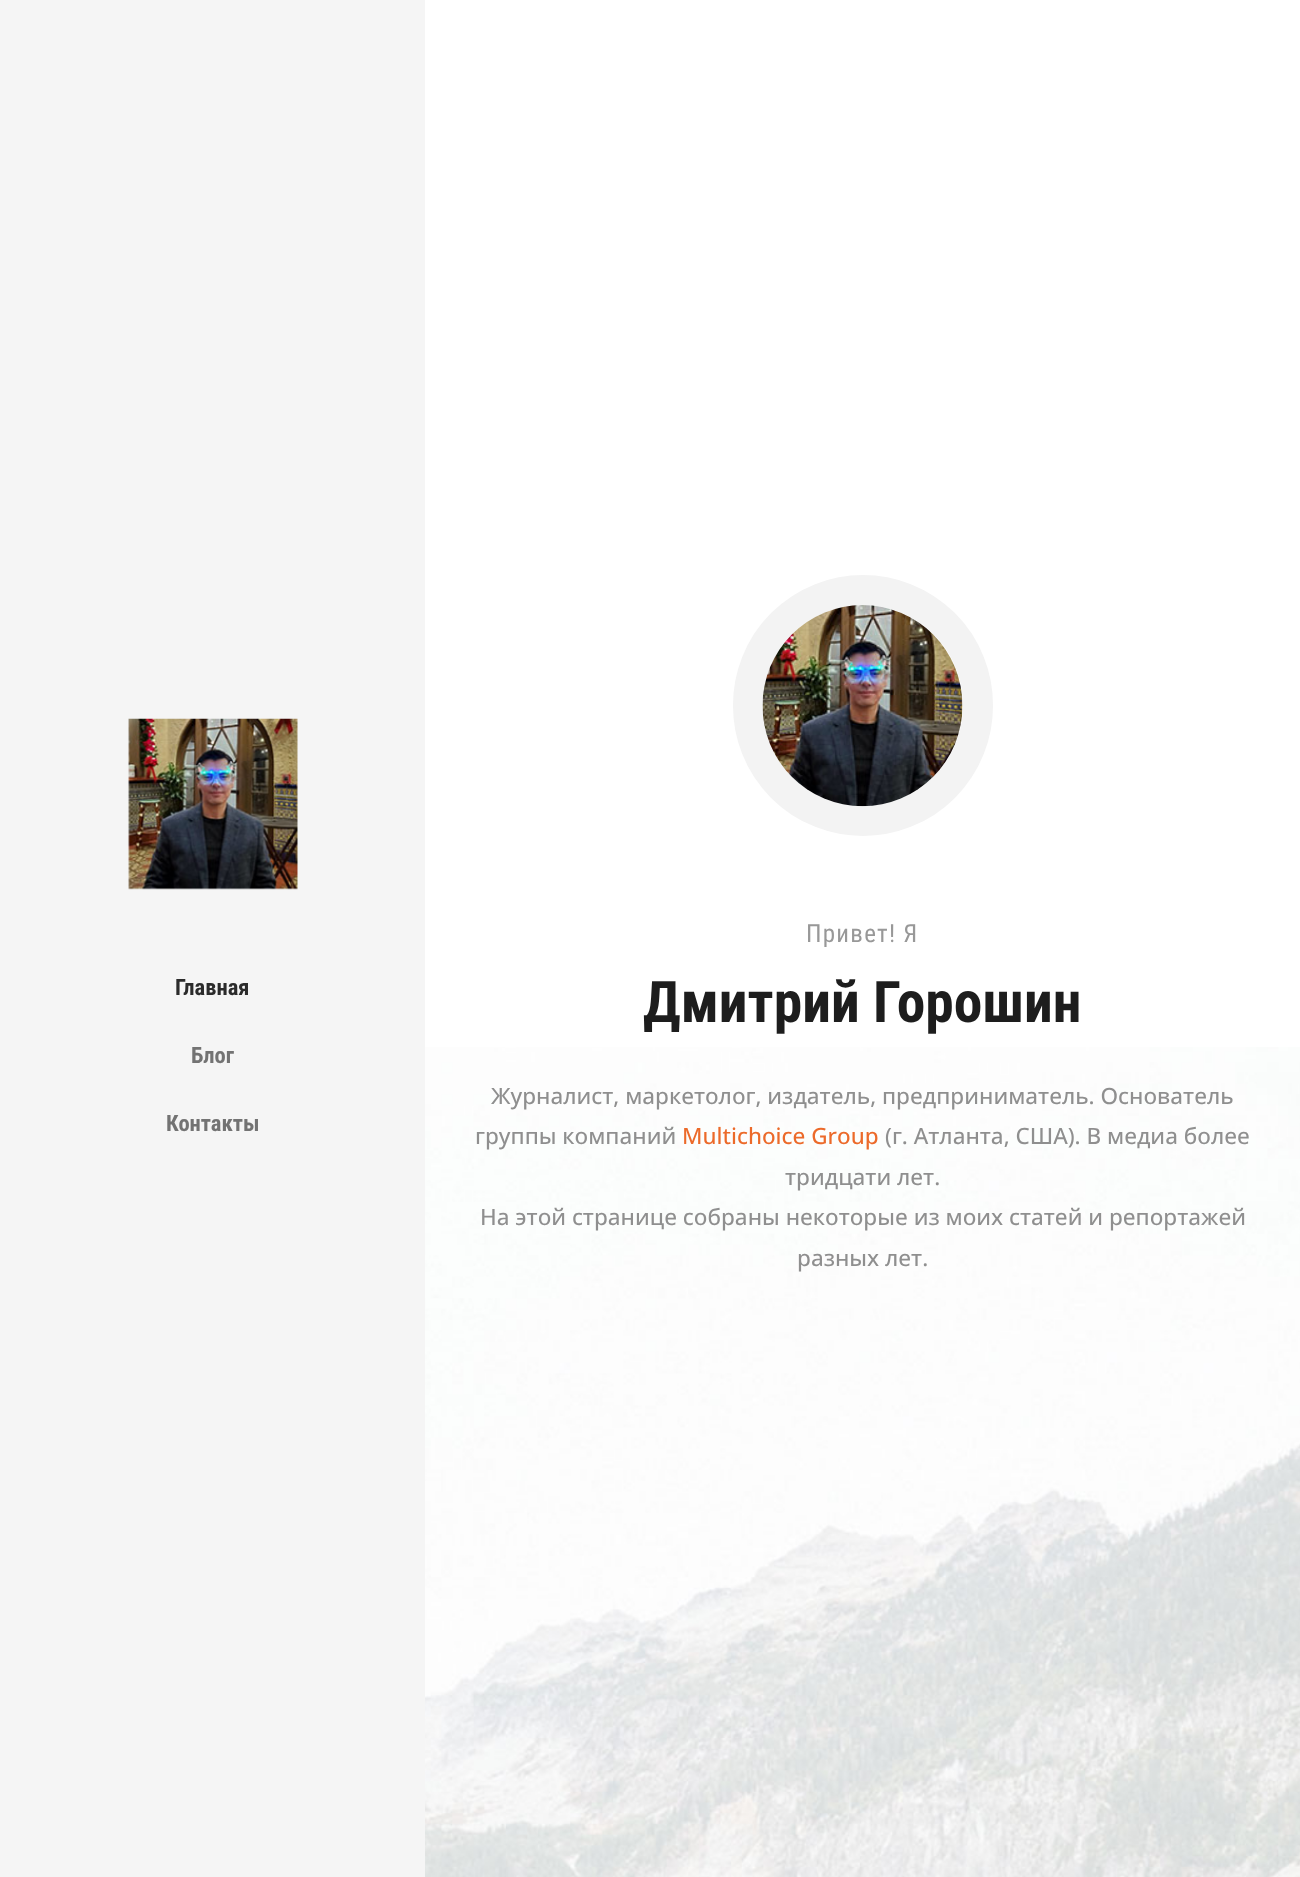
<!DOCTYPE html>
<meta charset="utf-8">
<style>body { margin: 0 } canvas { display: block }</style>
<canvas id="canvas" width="1300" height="1877"></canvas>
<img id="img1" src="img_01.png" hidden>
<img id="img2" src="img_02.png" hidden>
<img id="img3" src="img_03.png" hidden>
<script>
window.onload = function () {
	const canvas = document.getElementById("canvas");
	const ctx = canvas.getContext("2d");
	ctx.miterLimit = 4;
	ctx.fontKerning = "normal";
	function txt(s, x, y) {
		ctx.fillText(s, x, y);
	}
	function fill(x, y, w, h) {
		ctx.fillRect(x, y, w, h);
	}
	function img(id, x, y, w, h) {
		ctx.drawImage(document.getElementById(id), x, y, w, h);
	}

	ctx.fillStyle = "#FFFFFF";
	fill(0, 0, 1300, 1877);
	ctx.fillStyle = "#F5F5F5";
	fill(0, 0, 425, 1877);
	img("img1", 128, 718, 170, 172);
	ctx.beginPath();
	ctx.roundRect(748, 590, 230, 231, 115);
	ctx.strokeStyle = "#F3F3F3";
	ctx.lineWidth = 30;
	ctx.stroke();
	img("img2", 762, 605, 201, 202);
	img("img3", 425, 1047, 875, 830);
	ctx.font = "bold 22.5px Roboto Condensed";
	ctx.fillStyle = "#2B2B2B";
	txt("Главная", 175, 995);
	ctx.fillStyle = "#737373";
	txt("Блог", 191, 1063);
	txt("Контакты", 166, 1131);
	ctx.letterSpacing = "1.25px";
	ctx.font = "25px Roboto Condensed";
	ctx.fillStyle = "#989898";
	txt("Привет! Я", 806, 942);
	ctx.letterSpacing = "0px";
	ctx.font = "bold 57.5px Roboto Condensed";
	ctx.fillStyle = "#1D1D1D";
	txt("Дмитрий Горошин", 643, 1022);
	ctx.font = "500 22.5px Open Sans";
	ctx.fillStyle = "#8F8F8F";
	txt("Журналист, маркетолог, издатель, предприниматель. Основатель", 491, 1104);
	txt("группы компаний", 475, 1144);
	ctx.fillStyle = "#EC6A2A";
	txt("Multichoice Group", 682, 1144);
	ctx.fillStyle = "#8F8F8F";
	txt("(г. Атланта, США). В медиа более", 885, 1144);
	txt("тридцати лет.", 785, 1185);
	txt("На этой странице собраны некоторые из моих статей и репортажей", 480, 1225);
	txt("разных лет.", 797, 1266);
};
</script>
